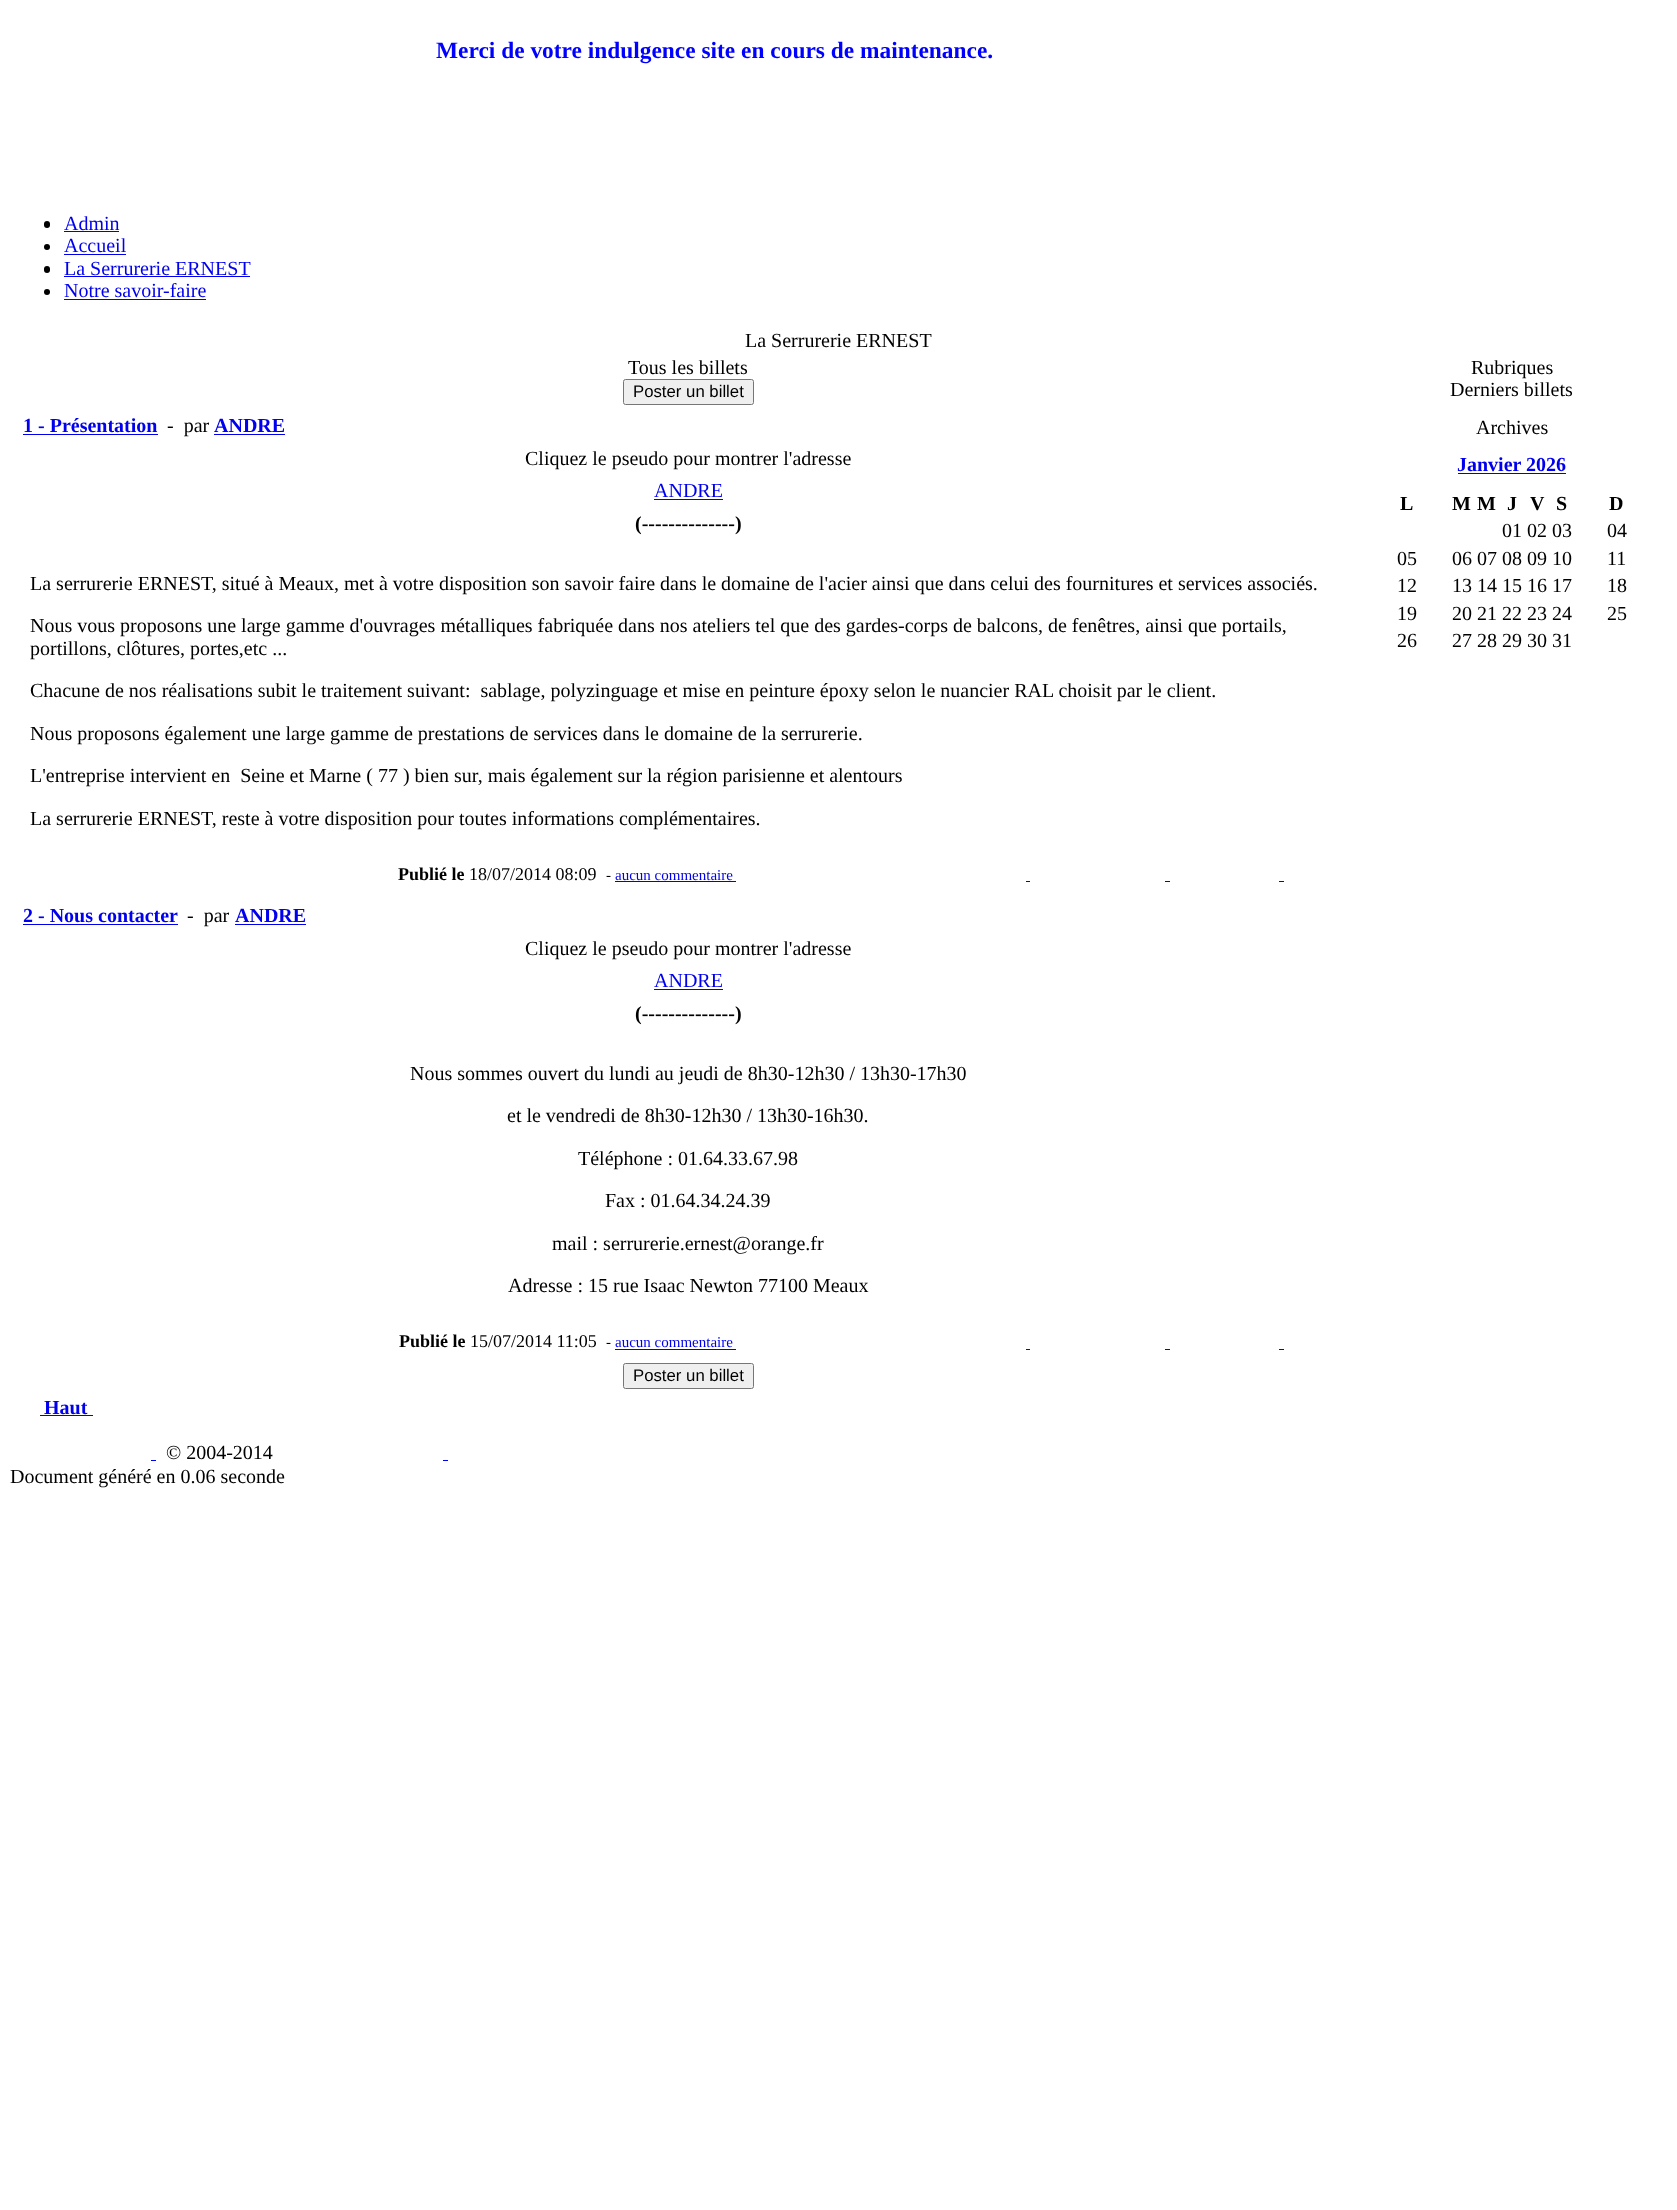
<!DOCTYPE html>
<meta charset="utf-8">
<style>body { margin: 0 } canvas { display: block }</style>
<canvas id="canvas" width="1677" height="2210"></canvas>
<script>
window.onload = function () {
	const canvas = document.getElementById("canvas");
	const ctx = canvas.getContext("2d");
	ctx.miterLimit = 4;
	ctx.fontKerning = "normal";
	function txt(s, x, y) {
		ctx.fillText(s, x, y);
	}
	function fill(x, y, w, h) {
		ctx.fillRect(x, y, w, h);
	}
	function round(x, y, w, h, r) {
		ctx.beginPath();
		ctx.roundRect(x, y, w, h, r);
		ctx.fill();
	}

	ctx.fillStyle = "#FFFFFF";
	fill(0, 0, 1677, 2210);
	ctx.fillStyle = "#000000";
	round(44, 221, 6, 7, 3);
	ctx.fillStyle = "#0000EE";
	fill(64, 231, 55, 1);
	ctx.fillStyle = "#000000";
	ctx.beginPath();
	ctx.arc(47, 247, 3, 0, Math.PI * 2);
	ctx.fill();
	ctx.fillStyle = "#0000EE";
	fill(64, 254, 62, 1);
	ctx.fillStyle = "#000000";
	round(44, 266, 6, 7, 3);
	ctx.fillStyle = "#0000EE";
	fill(64, 276, 186, 1);
	ctx.fillStyle = "#000000";
	ctx.beginPath();
	ctx.arc(47, 292, 3, 0, Math.PI * 2);
	ctx.fill();
	ctx.fillStyle = "#0000EE";
	fill(64, 299, 142, 1);
	ctx.fillStyle = "#EFEFEF";
	ctx.beginPath();
	ctx.roundRect(623.5, 379.5, 130, 25, 2);
	ctx.fill();
	ctx.strokeStyle = "#767676";
	ctx.stroke();
	ctx.fillStyle = "#0000EE";
	fill(23, 434, 135, 1);
	fill(214, 434, 71, 1);
	fill(654, 499, 69, 1);
	fill(615, 881, 121, 1);
	fill(1026, 881, 4, 1);
	fill(1165, 881, 5, 1);
	fill(1279, 881, 5, 1);
	fill(23, 924, 155, 1);
	fill(235, 924, 71, 1);
	fill(654, 989, 69, 1);
	fill(615, 1349, 121, 1);
	fill(1026, 1349, 4, 1);
	fill(1165, 1349, 5, 1);
	fill(1279, 1349, 5, 1);
	ctx.fillStyle = "#EFEFEF";
	ctx.beginPath();
	ctx.roundRect(623.5, 1363.5, 130, 25, 2);
	ctx.fill();
	ctx.stroke();
	ctx.fillStyle = "#0000EE";
	fill(1458, 473, 108, 1);
	fill(40, 1415, 53, 1);
	fill(151, 1460, 5, 1);
	fill(443, 1460, 5, 1);
	ctx.font = "bold 23.4px Liberation Serif";
	ctx.fillStyle = "#0000FF";
	txt("Merci de votre indulgence site en cours de maintenance.", 436, 58);
	ctx.font = "20px Liberation Serif";
	ctx.fillStyle = "#0000EE";
	txt("Admin", 64, 230);
	txt("Accueil", 64, 252);
	txt("La Serrurerie ERNEST", 64, 275);
	txt("Notre savoir-faire", 64, 297);
	ctx.fillStyle = "#000000";
	txt("La Serrurerie ERNEST", 745, 347);
	txt("Tous les billets", 628, 374);
	ctx.font = "16.75px Liberation Sans";
	txt("Poster un billet", 633, 397);
	ctx.font = "bold 20px Liberation Serif";
	ctx.fillStyle = "#0000EE";
	txt("1 - Présentation", 23, 432);
	ctx.font = "20px Liberation Serif";
	ctx.fillStyle = "#000000";
	txt("-  par", 167, 432);
	ctx.font = "bold 20px Liberation Serif";
	ctx.fillStyle = "#0000EE";
	txt("ANDRE", 214, 432);
	ctx.font = "20px Liberation Serif";
	ctx.fillStyle = "#000000";
	txt("Cliquez le pseudo pour montrer l'adresse", 525, 465);
	ctx.fillStyle = "#0000EE";
	txt("ANDRE", 654, 497);
	ctx.font = "bold 20px Liberation Serif";
	ctx.fillStyle = "#000000";
	txt("(--------------)", 635, 530);
	ctx.font = "20px Liberation Serif";
	txt("La serrurerie ERNEST, situé à Meaux, met à votre disposition son savoir faire dans le domaine de l'acier ainsi que dans celui des fournitures et services associés.", 30, 590);
	txt("Nous vous proposons une large gamme d'ouvrages métalliques fabriquée dans nos ateliers tel que des gardes-corps de balcons, de fenêtres, ainsi que portails,", 30, 632);
	txt("portillons, clôtures, portes,etc ...", 30, 655);
	txt("Chacune de nos réalisations subit le traitement suivant:  sablage, polyzinguage et mise en peinture époxy selon le nuancier RAL choisit par le client.", 30, 697);
	txt("Nous proposons également une large gamme de prestations de services dans le domaine de la serrurerie.", 30, 740);
	txt("L'entreprise intervient en  Seine et Marne ( 77 ) bien sur, mais également sur la région parisienne et alentours", 30, 782);
	txt("La serrurerie ERNEST, reste à votre disposition pour toutes informations complémentaires.", 30, 825);
	ctx.font = "bold 18px Liberation Serif";
	txt("Publié le", 398, 880);
	ctx.font = "18px Liberation Serif";
	txt("18/07/2014 08:09", 469, 880);
	ctx.font = "15px Liberation Serif";
	txt("-", 606, 880);
	ctx.fillStyle = "#0000EE";
	txt("aucun commentaire", 615, 880);
	ctx.font = "bold 20px Liberation Serif";
	txt("2 - Nous contacter", 23, 922);
	ctx.font = "20px Liberation Serif";
	ctx.fillStyle = "#000000";
	txt("-  par", 187, 922);
	ctx.font = "bold 20px Liberation Serif";
	ctx.fillStyle = "#0000EE";
	txt("ANDRE", 235, 922);
	ctx.font = "20px Liberation Serif";
	ctx.fillStyle = "#000000";
	txt("Cliquez le pseudo pour montrer l'adresse", 525, 955);
	ctx.fillStyle = "#0000EE";
	txt("ANDRE", 654, 987);
	ctx.font = "bold 20px Liberation Serif";
	ctx.fillStyle = "#000000";
	txt("(--------------)", 635, 1020);
	ctx.font = "20px Liberation Serif";
	txt("Nous sommes ouvert du lundi au jeudi de 8h30-12h30 / 13h30-17h30", 410, 1080);
	txt("et le vendredi de 8h30-12h30 / 13h30-16h30.", 507, 1122);
	txt("Téléphone : 01.64.33.67.98", 578, 1165);
	txt("Fax : 01.64.34.24.39", 605, 1207);
	txt("mail : serrurerie.ernest@orange.fr", 552, 1250);
	txt("Adresse : 15 rue Isaac Newton 77100 Meaux", 508, 1292);
	ctx.font = "bold 18px Liberation Serif";
	txt("Publié le", 399, 1347);
	ctx.font = "18px Liberation Serif";
	txt("15/07/2014 11:05", 470, 1347);
	ctx.font = "15px Liberation Serif";
	txt("-", 606, 1347);
	ctx.fillStyle = "#0000EE";
	txt("aucun commentaire", 615, 1347);
	ctx.font = "16.75px Liberation Sans";
	ctx.fillStyle = "#000000";
	txt("Poster un billet", 633, 1381);
	ctx.font = "20px Liberation Serif";
	txt("Rubriques", 1471, 374);
	txt("Derniers billets", 1450, 396);
	txt("Archives", 1476, 434);
	ctx.font = "bold 20px Liberation Serif";
	ctx.fillStyle = "#0000EE";
	txt("Janvier 2026", 1457, 471);
	ctx.fillStyle = "#000000";
	txt("L", 1400, 510);
	txt("M", 1452, 510);
	txt("M", 1477, 510);
	txt("J", 1507, 510);
	txt("V", 1530, 510);
	txt("S", 1556, 510);
	txt("D", 1609, 510);
	ctx.font = "20px Liberation Serif";
	txt("01 02 03", 1502, 537);
	txt("04", 1607, 537);
	txt("05", 1397, 565);
	txt("06 07 08 09 10", 1452, 565);
	txt("11", 1607, 565);
	txt("12", 1397, 592);
	txt("13 14 15 16 17", 1452, 592);
	txt("18", 1607, 592);
	txt("19", 1397, 620);
	txt("20 21 22 23 24", 1452, 620);
	txt("25", 1607, 620);
	txt("26", 1397, 647);
	txt("27 28 29 30 31", 1452, 647);
	ctx.font = "bold 20px Liberation Serif";
	ctx.fillStyle = "#0000EE";
	txt("Haut", 44, 1414);
	ctx.font = "20px Liberation Serif";
	ctx.fillStyle = "#000000";
	txt("© 2004-2014", 166, 1459);
	txt("Document généré en 0.06 seconde", 10, 1483);
};
</script>
